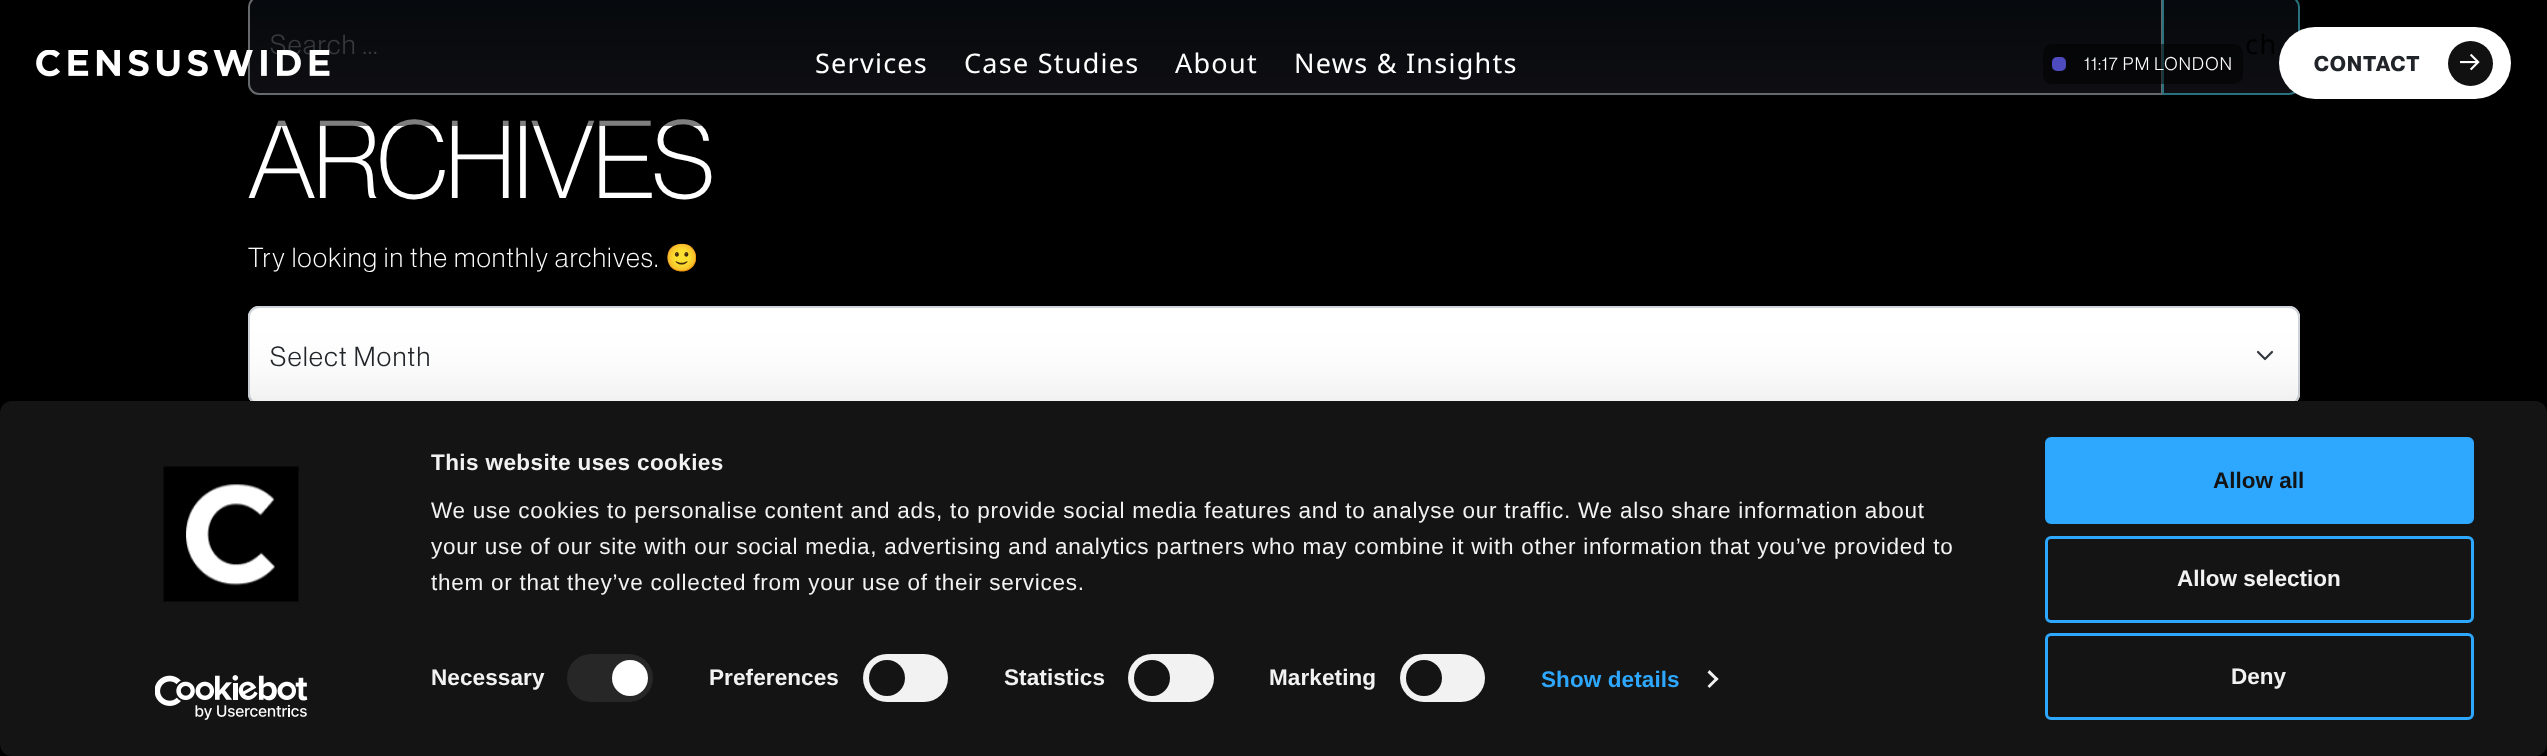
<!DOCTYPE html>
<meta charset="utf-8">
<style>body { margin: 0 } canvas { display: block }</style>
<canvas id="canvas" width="2547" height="756"></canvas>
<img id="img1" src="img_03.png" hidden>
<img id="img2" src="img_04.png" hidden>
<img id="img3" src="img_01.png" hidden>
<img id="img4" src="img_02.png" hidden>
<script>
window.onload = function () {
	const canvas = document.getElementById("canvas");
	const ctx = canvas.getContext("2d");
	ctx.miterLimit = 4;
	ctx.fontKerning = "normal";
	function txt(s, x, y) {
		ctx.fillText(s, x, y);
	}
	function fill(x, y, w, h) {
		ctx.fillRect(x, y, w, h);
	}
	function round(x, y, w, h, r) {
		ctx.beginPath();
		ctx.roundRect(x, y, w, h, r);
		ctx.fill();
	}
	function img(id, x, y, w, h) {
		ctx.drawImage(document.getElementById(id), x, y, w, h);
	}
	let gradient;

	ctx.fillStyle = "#000000";
	fill(0, 0, 2547, 756);
	gradient = ctx.createLinearGradient(1205, 93, 1205, -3);
	gradient.addColorStop(0, "#1E1D26");
	gradient.addColorStop(1, "#0B1219");
	ctx.fillStyle = gradient;
	ctx.beginPath();
	ctx.moveTo(258, -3);
	ctx.lineTo(2162, -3);
	ctx.lineTo(2162, 93);
	ctx.lineTo(258, 93);
	ctx.bezierCurveTo(253, 93, 249, 89, 249, 84);
	ctx.lineTo(249, 6);
	ctx.bezierCurveTo(249, 1, 253, -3, 258, -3);
	ctx.closePath();
	ctx.fill();
	ctx.beginPath();
	ctx.moveTo(259, -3);
	ctx.lineTo(2162, -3);
	ctx.lineTo(2162, 94);
	ctx.lineTo(259, 94);
	ctx.bezierCurveTo(253.5, 94, 249, 89.5, 249, 84);
	ctx.lineTo(249, 7);
	ctx.bezierCurveTo(249, 1.5, 253.5, -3, 259, -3);
	ctx.closePath();
	ctx.strokeStyle = "#CED4DA";
	ctx.lineWidth = 2;
	ctx.stroke();
	ctx.save();
	ctx.beginPath();
	ctx.moveTo(2162, -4);
	ctx.lineTo(2289, -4);
	ctx.bezierCurveTo(2295, -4, 2300, 1, 2300, 7);
	ctx.lineTo(2300, 84);
	ctx.bezierCurveTo(2300, 90, 2295, 95, 2289, 95);
	ctx.lineTo(2162, 95);
	ctx.closePath();
	ctx.clip();
	gradient = ctx.createLinearGradient(2231, 93, 2231, -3);
	gradient.addColorStop(0, "#1E1D26");
	gradient.addColorStop(1, "#0B1219");
	ctx.fillStyle = gradient;
	fill(2164, 0, 136, 93);
	ctx.restore();
	ctx.beginPath();
	ctx.moveTo(2163, -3);
	ctx.lineTo(2289, -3);
	ctx.bezierCurveTo(2294.5, -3, 2299, 1.5, 2299, 7);
	ctx.lineTo(2299, 84);
	ctx.bezierCurveTo(2299, 89.5, 2294.5, 94, 2289, 94);
	ctx.lineTo(2163, 94);
	ctx.closePath();
	ctx.strokeStyle = "#52E2FA";
	ctx.stroke();
	ctx.fillStyle = "#FFFFFF";
	round(248, 306, 2052, 99, 11);
	ctx.beginPath();
	ctx.moveTo(2258, 352);
	ctx.lineTo(2265, 359);
	ctx.lineTo(2272, 352);
	ctx.strokeStyle = "#343A40";
	ctx.lineWidth = 2.2;
	ctx.lineCap = "round";
	ctx.lineJoin = "round";
	ctx.stroke();
	ctx.beginPath();
	ctx.roundRect(249, 307, 2050, 97, 10);
	ctx.strokeStyle = "#CED4DA";
	ctx.lineWidth = 2;
	ctx.lineJoin = "miter";
	ctx.stroke();
	ctx.fillStyle = "rgba(0, 0, 0, 0.3)";
	ctx.filter = "blur(52.5px)";
	ctx.beginPath();
	ctx.roundRect(0, 446, 2547, 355, 12);
	ctx.fill();
	ctx.filter = "none";
	ctx.fillStyle = "#141414";
	round(0, 401, 2547, 355, 12);
	img("img1", 163, 466, 136, 136);
	img("img2", 155, 675, 153, 45);
	ctx.fillStyle = "#272727";
	round(567, 654, 86, 48, 24);
	ctx.fillStyle = "#FFFFFF";
	ctx.beginPath();
	ctx.arc(630, 678, 18, 0, Math.PI * 2);
	ctx.fill();
	ctx.fillStyle = "#F2F2F2";
	round(863, 654, 85, 48, 24);
	ctx.fillStyle = "#141414";
	ctx.beginPath();
	ctx.arc(887, 678, 18, 0, Math.PI * 2);
	ctx.fill();
	ctx.fillStyle = "#F2F2F2";
	round(1128, 654, 86, 48, 24);
	ctx.fillStyle = "#141414";
	ctx.beginPath();
	ctx.arc(1152, 678, 18, 0, Math.PI * 2);
	ctx.fill();
	ctx.fillStyle = "#F2F2F2";
	round(1400, 654, 85, 48, 24);
	ctx.fillStyle = "#141414";
	ctx.beginPath();
	ctx.arc(1424, 678, 18, 0, Math.PI * 2);
	ctx.fill();
	ctx.fillStyle = "#F2F2F2";
	ctx.beginPath();
	ctx.moveTo(1709.5, 670);
	ctx.lineTo(1718.5, 679);
	ctx.lineTo(1716.5, 681);
	ctx.lineTo(1707.5, 672.5);
	ctx.closePath();
	ctx.fill();
	ctx.beginPath();
	ctx.moveTo(1716.5, 677);
	ctx.lineTo(1718.5, 679);
	ctx.lineTo(1709.5, 688);
	ctx.lineTo(1707.5, 686);
	ctx.closePath();
	ctx.fill();
	ctx.fillStyle = "#2EA7FF";
	ctx.beginPath();
	ctx.roundRect(2046.5, 438.5, 426, 84, 4.5);
	ctx.fill();
	ctx.strokeStyle = "#2EA7FF";
	ctx.lineWidth = 3;
	ctx.stroke();
	ctx.beginPath();
	ctx.roundRect(2046.5, 537.5, 426, 84, 4.5);
	ctx.stroke();
	ctx.beginPath();
	ctx.roundRect(2046.5, 634.5, 426, 84, 4.5);
	ctx.stroke();
	ctx.letterSpacing = "1.5px";
	ctx.font = "27px 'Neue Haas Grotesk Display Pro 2'";
	ctx.fillStyle = "#6C757D";
	txt("Search …", 270, 54);
	ctx.font = "27px Noto Sans";
	ctx.fillStyle = "#000000";
	txt("ch", 2245, 54);
	ctx.letterSpacing = "-2.25px";
	ctx.font = "108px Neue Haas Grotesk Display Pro";
	ctx.fillStyle = "#FFFFFF";
	txt("ARCHIVES", 248, 198);
	ctx.letterSpacing = "1.5px";
	ctx.font = "27px Neue Haas Grotesk Display Pro";
	txt("Try looking in the monthly archives.", 248, 267);
	ctx.font = "27px Noto Color Emoji";
	txt("🙂", 665, 267);
	ctx.font = "27px 'Neue Haas Grotesk Display Pro 2'";
	ctx.fillStyle = "#212529";
	txt("Select Month", 270, 366);
	ctx.fillStyle = "rgba(0, 0, 0, 0.5)";
	fill(248, 0, 2052, 126);
	img("img3", 36, 50, 294, 27);
	ctx.letterSpacing = "1.25px";
	ctx.font = "27px Noto Sans";
	ctx.fillStyle = "#FFFFFF";
	txt("Services", 815, 73);
	txt("Case Studies", 964, 73);
	txt("About", 1175, 73);
	txt("News & Insights", 1294, 73);
	ctx.fillStyle = "rgba(0, 0, 0, 0.5)";
	round(2043, 44, 200, 40, 9);
	ctx.fillStyle = "#4E4BBE";
	round(2052, 57, 14, 14, 5);
	ctx.font = "18px 'Neue Haas Grotesk Display Pro 2'";
	ctx.fillStyle = "#FFFFFF";
	txt("11:17 PM LONDON", 2084, 70);
	round(2279, 27, 232, 72, 36);
	ctx.font = "bold 21px Neue Haas Grotesk Display Pro";
	ctx.fillStyle = "#212529";
	txt("CONTACT", 2314, 71);
	ctx.fillStyle = "#111111";
	ctx.beginPath();
	ctx.arc(2470.5, 63.5, 22.5, 0, Math.PI * 2);
	ctx.fill();
	img("img4", 2460, 53, 20, 18);
	ctx.letterSpacing = "0.4px";
	ctx.font = "bold 22.5px Liberation Sans";
	ctx.fillStyle = "#F2F2F2";
	txt("This website uses cookies", 431, 470);
	ctx.letterSpacing = "0.75px";
	ctx.font = "22.5px Liberation Sans";
	txt("We use cookies to personalise content and ads, to provide social media features and to analyse our traffic. We also share information about", 431, 518);
	txt("your use of our site with our social media, advertising and analytics partners who may combine it with other information that you’ve provided to", 431, 554);
	txt("them or that they’ve collected from your use of their services.", 431, 590);
	ctx.letterSpacing = "0.1px";
	ctx.font = "bold 22.5px Liberation Sans";
	txt("Necessary", 431, 685);
	txt("Preferences", 709, 685);
	txt("Statistics", 1004, 685);
	txt("Marketing", 1269, 685);
	ctx.fillStyle = "#2EA7FF";
	txt("Show details", 1541, 687);
	ctx.letterSpacing = "0px";
	ctx.fillStyle = "#141414";
	txt("Allow all", 2213, 488);
	ctx.fillStyle = "#F2F2F2";
	txt("Allow selection", 2177, 586);
	txt("Deny", 2231, 684);
};
</script>
